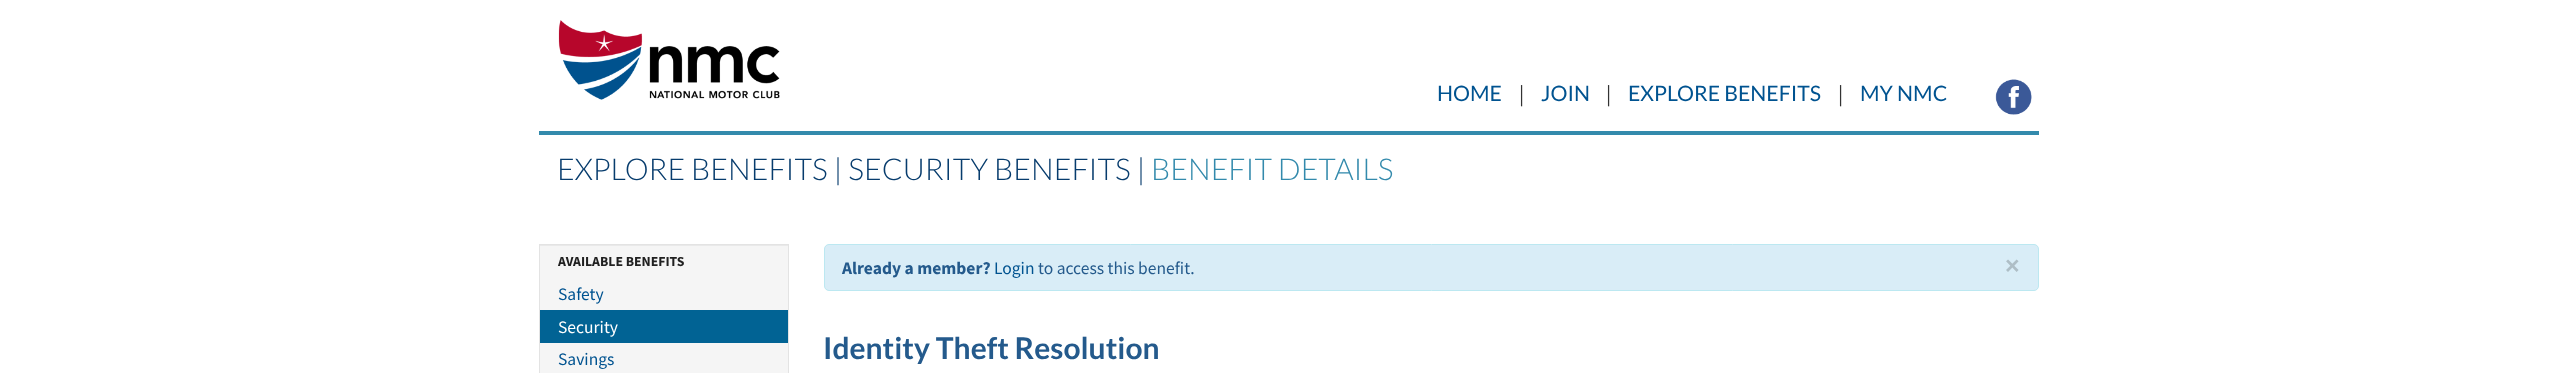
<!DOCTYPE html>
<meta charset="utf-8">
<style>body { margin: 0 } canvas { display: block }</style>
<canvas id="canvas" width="2576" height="373"></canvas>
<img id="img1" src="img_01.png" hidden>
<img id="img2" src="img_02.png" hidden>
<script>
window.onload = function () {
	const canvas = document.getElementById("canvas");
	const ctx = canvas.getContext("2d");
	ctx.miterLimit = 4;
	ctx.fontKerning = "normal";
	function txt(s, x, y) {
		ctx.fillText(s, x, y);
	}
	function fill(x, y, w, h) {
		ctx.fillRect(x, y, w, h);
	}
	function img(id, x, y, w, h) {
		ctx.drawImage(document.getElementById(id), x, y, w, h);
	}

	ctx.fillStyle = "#FFFFFF";
	fill(0, 0, 2576, 373);
	img("img1", 558, 20, 222, 80);
	img("img2", 1995, 79, 37, 36);
	ctx.fillStyle = "#338AAC";
	fill(539, 131, 1500, 4);
	ctx.fillStyle = "#F5F5F5";
	fill(540, 246, 248, 127);
	ctx.fillStyle = "#E9E9E9";
	fill(540, 245, 248, 1);
	ctx.strokeStyle = "#E3E3E3";
	ctx.strokeRect(539.5, 244.5, 249, 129);
	ctx.fillStyle = "#016394";
	fill(540, 310, 248, 33);
	ctx.fillStyle = "#D9EDF7";
	ctx.beginPath();
	ctx.roundRect(824.5, 244.5, 1214, 46, 4.5);
	ctx.fill();
	ctx.strokeStyle = "#BCE8F1";
	ctx.stroke();
	ctx.font = "21.25px Lato";
	ctx.fillStyle = "#005390";
	txt("HOME", 1437, 101);
	ctx.font = "21.25px Source Sans Pro";
	ctx.fillStyle = "#333333";
	txt("|", 1519, 101);
	ctx.font = "21.25px Lato";
	ctx.fillStyle = "#005390";
	txt("JOIN", 1541, 101);
	ctx.font = "21.25px Source Sans Pro";
	ctx.fillStyle = "#333333";
	txt("|", 1606, 101);
	ctx.font = "21.25px Lato";
	ctx.fillStyle = "#005390";
	txt("EXPLORE BENEFITS", 1628, 101);
	ctx.font = "21.25px Source Sans Pro";
	ctx.fillStyle = "#333333";
	txt("|", 1838, 101);
	ctx.font = "21.25px Lato";
	ctx.fillStyle = "#005390";
	txt("MY NMC", 1860, 101);
	ctx.font = "300 30px Lato";
	ctx.fillStyle = "#073C6D";
	txt("EXPLORE BENEFITS | SECURITY BENEFITS |", 557, 180);
	ctx.fillStyle = "#338AAC";
	txt("BENEFIT DETAILS", 1151, 180);
	ctx.font = "bold 13.75px Source Sans Pro";
	ctx.fillStyle = "#202020";
	txt("AVAILABLE BENEFITS", 558, 266);
	ctx.font = "17.5px Source Sans Pro";
	ctx.fillStyle = "#005390";
	txt("Safety", 558, 300);
	ctx.fillStyle = "#FFFFFF";
	txt("Security", 558, 333);
	ctx.fillStyle = "#005390";
	txt("Savings", 558, 365);
	ctx.font = "bold 17.5px Source Sans Pro";
	ctx.fillStyle = "#245A8C";
	txt("Already a member?", 842, 274);
	ctx.font = "17.5px Source Sans Pro";
	ctx.fillStyle = "#005390";
	txt("Login", 994, 274);
	ctx.fillStyle = "#245A8C";
	txt("to access this benefit.", 1038, 274);
	ctx.font = "bold 25px Liberation Sans";
	ctx.fillStyle = "#AEBEC6";
	txt("×", 2005, 274);
	ctx.font = "bold 30px Lato";
	ctx.fillStyle = "#245A8C";
	txt("Identity Theft Resolution", 823, 359);
};
</script>
